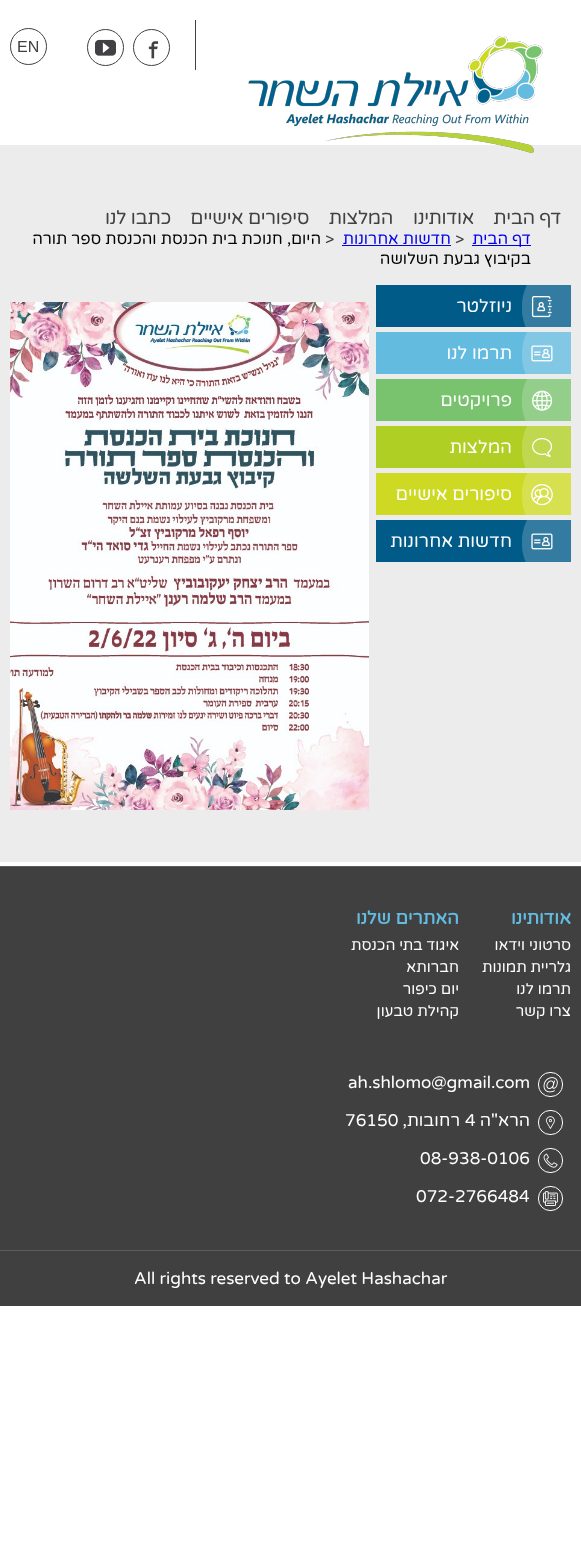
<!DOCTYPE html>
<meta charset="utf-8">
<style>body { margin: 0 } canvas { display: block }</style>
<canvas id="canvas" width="581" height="1563"></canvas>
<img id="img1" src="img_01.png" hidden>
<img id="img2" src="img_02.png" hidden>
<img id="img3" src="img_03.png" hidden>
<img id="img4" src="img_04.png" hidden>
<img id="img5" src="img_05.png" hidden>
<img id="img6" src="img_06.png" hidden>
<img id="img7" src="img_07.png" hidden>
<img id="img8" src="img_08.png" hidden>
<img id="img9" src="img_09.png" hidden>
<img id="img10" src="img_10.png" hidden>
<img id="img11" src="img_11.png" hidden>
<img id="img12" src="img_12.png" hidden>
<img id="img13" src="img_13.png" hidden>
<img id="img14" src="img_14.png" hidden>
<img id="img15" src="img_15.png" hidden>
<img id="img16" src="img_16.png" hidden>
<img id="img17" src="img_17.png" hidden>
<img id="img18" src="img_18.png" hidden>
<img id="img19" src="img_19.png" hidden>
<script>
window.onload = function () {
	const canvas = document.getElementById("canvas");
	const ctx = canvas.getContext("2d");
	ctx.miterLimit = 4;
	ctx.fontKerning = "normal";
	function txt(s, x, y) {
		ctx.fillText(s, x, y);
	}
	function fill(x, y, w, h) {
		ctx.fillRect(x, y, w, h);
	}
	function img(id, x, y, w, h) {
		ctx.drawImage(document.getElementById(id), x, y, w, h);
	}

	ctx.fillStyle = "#FFFFFF";
	fill(0, 0, 581, 1563);
	ctx.fillStyle = "#ECECEC";
	fill(0, 145, 581, 717);
	img("img1", 248, 36, 295, 118);
	ctx.fillStyle = "#414042";
	fill(195, 20, 1, 50);
	ctx.beginPath();
	ctx.arc(151.5, 47.5, 18, 0, Math.PI * 2);
	ctx.strokeStyle = "#414042";
	ctx.stroke();
	ctx.beginPath();
	ctx.arc(105.5, 47.5, 18, 0, Math.PI * 2);
	ctx.stroke();
	img("img2", 148, 41, 11, 18);
	img("img3", 95, 39, 21, 17);
	ctx.beginPath();
	ctx.arc(28.5, 46.5, 18, 0, Math.PI * 2);
	ctx.stroke();
	ctx.fillStyle = "#0000EE";
	fill(472, 245, 59, 1);
	fill(342, 245, 109, 1);
	ctx.fillStyle = "#005B89";
	fill(376, 285, 195, 42);
	img("img4", 522, 285, 49, 42);
	img("img5", 531, 296, 21, 22);
	ctx.fillStyle = "#63BBDF";
	fill(376, 332, 195, 42);
	img("img6", 522, 332, 49, 42);
	img("img7", 531, 345, 22, 17);
	ctx.fillStyle = "#79C36F";
	fill(376, 379, 195, 42);
	img("img8", 522, 379, 49, 42);
	img("img9", 532, 390, 21, 21);
	ctx.fillStyle = "#AFCF24";
	fill(376, 426, 195, 42);
	img("img10", 522, 426, 49, 42);
	img("img11", 532, 438, 21, 19);
	ctx.fillStyle = "#CED924";
	fill(376, 473, 195, 42);
	img("img12", 522, 473, 49, 42);
	img("img13", 531, 484, 22, 22);
	ctx.fillStyle = "#005B89";
	fill(376, 520, 195, 42);
	img("img4", 522, 520, 49, 42);
	img("img14", 531, 533, 22, 17);
	img("img15", 10, 302, 359, 508);
	ctx.fillStyle = "#404041";
	fill(0, 867, 581, 439);
	ctx.fillStyle = "#5C5C5D";
	fill(0, 866, 581, 1);
	ctx.beginPath();
	ctx.roundRect(538.5, 1072.5, 24, 24, 11.5);
	ctx.strokeStyle = "#FFFFFF";
	ctx.stroke();
	img("img16", 543, 1077, 15, 16);
	ctx.beginPath();
	ctx.roundRect(538.5, 1110.5, 24, 24, 11.5);
	ctx.stroke();
	img("img17", 546, 1116, 9, 13);
	ctx.beginPath();
	ctx.roundRect(538.5, 1148.5, 24, 24, 11.5);
	ctx.stroke();
	img("img18", 543, 1153, 15, 15);
	ctx.beginPath();
	ctx.roundRect(538.5, 1186.5, 24, 24, 11.5);
	ctx.stroke();
	img("img19", 543, 1191, 15, 15);
	fill(0, 1250, 581, 1);
	ctx.font = "16px Liberation Sans";
	ctx.fillStyle = "#414042";
	txt("EN", 17, 52);
	ctx.letterSpacing = "-0.3px";
	ctx.direction = "rtl";
	ctx.font = "19px Varela Round";
	txt("דף הבית", 561, 224);
	txt("אודותינו", 474, 224);
	txt("המלצות", 393, 224);
	txt("סיפורים אישיים", 309, 224);
	txt("כתבו לנו", 171, 224);
	ctx.letterSpacing = "0px";
	ctx.font = "16px Varela Round";
	ctx.fillStyle = "#0000EE";
	txt("דף הבית", 531, 244);
	ctx.direction = "ltr";
	ctx.fillStyle = "#414042";
	txt(">", 455, 244);
	ctx.direction = "rtl";
	ctx.fillStyle = "#0000EE";
	txt("חדשות אחרונות", 451, 244);
	ctx.direction = "ltr";
	ctx.fillStyle = "#414042";
	txt(">", 325, 244);
	ctx.direction = "rtl";
	ctx.fillStyle = "#000000";
	txt("היום, חנוכת בית הכנסת והכנסת ספר תורה", 321, 244);
	txt("בקיבוץ גבעת השלושה", 531, 264);
	ctx.font = "18px Varela Round";
	ctx.fillStyle = "#FFFFFF";
	txt("ניוזלטר", 512, 312);
	txt("תרמו לנו", 512, 359);
	txt("פרויקטים", 512, 406);
	txt("המלצות", 512, 453);
	txt("סיפורים אישיים", 512, 500);
	txt("חדשות אחרונות", 512, 547);
	ctx.font = "bold 18px Varela Round";
	ctx.fillStyle = "#63BBDF";
	txt("אודותינו", 571, 924);
	ctx.font = "15px Varela Round";
	ctx.fillStyle = "#FFFFFF";
	txt("סרטוני וידאו", 571, 950);
	txt("גלריית תמונות", 571, 972);
	txt("תרמו לנו", 571, 994);
	txt("צרו קשר", 571, 1016);
	ctx.font = "bold 18px Varela Round";
	ctx.fillStyle = "#63BBDF";
	txt("האתרים שלנו", 459, 924);
	ctx.font = "15px Varela Round";
	ctx.fillStyle = "#FFFFFF";
	txt("איגוד בתי הכנסת", 459, 950);
	txt("חברותא", 459, 972);
	txt("יום כיפור", 459, 994);
	txt("קהילת טבעון", 459, 1016);
	ctx.direction = "ltr";
	ctx.font = "17px Varela Round";
	txt("ah.shlomo@gmail.com", 348, 1088);
	ctx.direction = "rtl";
	txt("הרא\"ה", 530, 1126);
	ctx.direction = "ltr";
	txt("4", 465, 1126);
	ctx.direction = "rtl";
	txt("רחובות,", 460, 1126);
	ctx.direction = "ltr";
	txt("76150", 345, 1126);
	txt("08-938-0106", 420, 1164);
	txt("072-2766484", 416, 1202);
	txt("All rights reserved to Ayelet Hashachar", 134, 1284);
};
</script>
